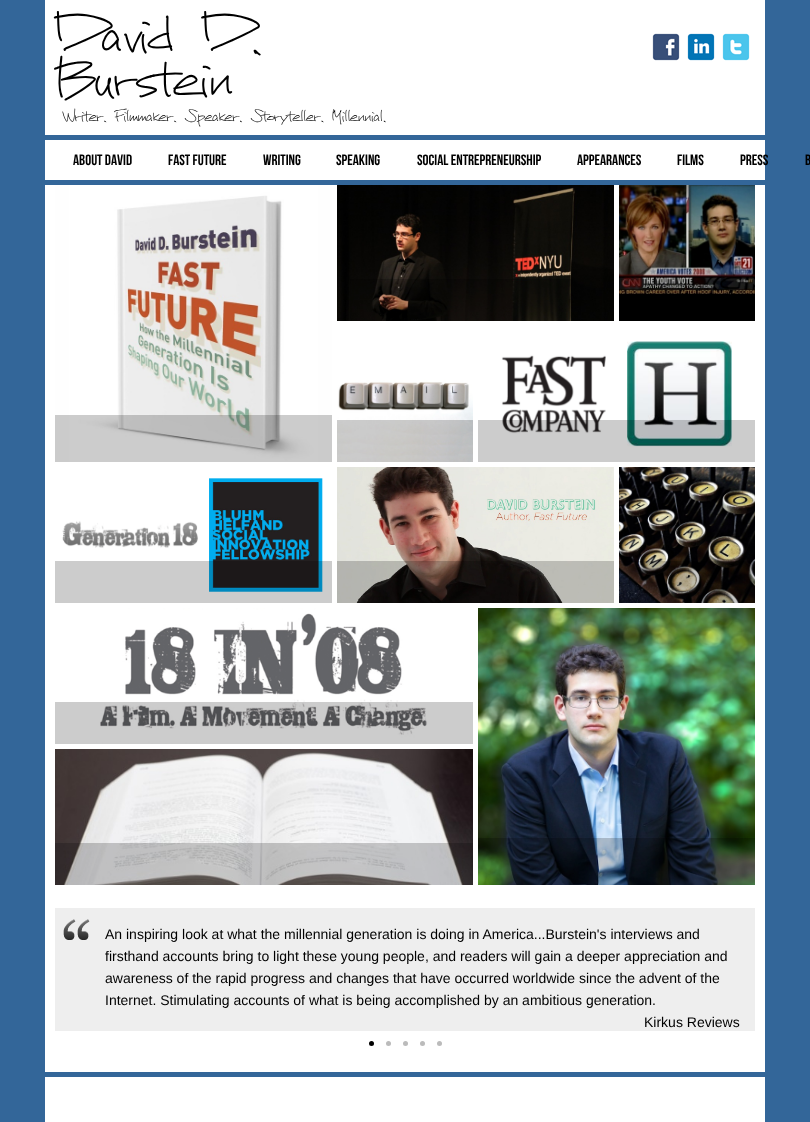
<!DOCTYPE html>
<meta charset="utf-8">
<style>body { margin: 0 } canvas { display: block }</style>
<canvas id="canvas" width="810" height="1122"></canvas>
<img id="img1" src="img_01.png" hidden>
<img id="img2" src="img_02.png" hidden>
<img id="img3" src="img_03.png" hidden>
<img id="img4" src="img_04.png" hidden>
<img id="img5" src="img_05.png" hidden>
<img id="img6" src="img_06.png" hidden>
<img id="img7" src="img_07.png" hidden>
<img id="img8" src="img_08.png" hidden>
<img id="img9" src="img_09.png" hidden>
<img id="img10" src="img_10.png" hidden>
<img id="img11" src="img_11.png" hidden>
<img id="img12" src="img_12.png" hidden>
<img id="img13" src="img_13.png" hidden>
<img id="img14" src="img_14.png" hidden>
<img id="img15" src="img_15.png" hidden>
<script>
window.onload = function () {
	const canvas = document.getElementById("canvas");
	const ctx = canvas.getContext("2d");
	ctx.miterLimit = 4;
	ctx.fontKerning = "normal";
	function txt(s, x, y) {
		ctx.fillText(s, x, y);
	}
	function fill(x, y, w, h) {
		ctx.fillRect(x, y, w, h);
	}
	function img(id, x, y, w, h) {
		ctx.drawImage(document.getElementById(id), x, y, w, h);
	}

	ctx.fillStyle = "#336699";
	fill(0, 0, 810, 1122);
	ctx.fillStyle = "#FFFFFF";
	fill(45, 0, 720, 135);
	img("img1", 652, 33, 28, 28);
	img("img2", 687, 33, 28, 28);
	img("img3", 722, 33, 28, 28);
	fill(45, 140, 720, 40);
	fill(45, 185, 720, 887);
	img("img4", 55, 185, 277, 277);
	ctx.fillStyle = "rgba(0, 0, 0, 0.2)";
	fill(55, 415, 277, 47);
	img("img5", 337, 185, 277, 136);
	fill(350, 279, 221, 42);
	img("img6", 619, 185, 136, 136);
	fill(619, 279, 136, 16);
	img("img7", 337, 326, 136, 136);
	fill(337, 420, 136, 42);
	img("img8", 478, 326, 277, 136);
	fill(478, 420, 277, 42);
	img("img9", 55, 467, 277, 136);
	fill(55, 561, 277, 42);
	img("img10", 337, 467, 277, 136);
	fill(337, 561, 277, 42);
	img("img11", 619, 467, 136, 136);
	fill(619, 561, 136, 42);
	img("img12", 55, 608, 418, 136);
	fill(55, 702, 418, 42);
	img("img13", 478, 608, 277, 277);
	fill(478, 838, 277, 47);
	img("img14", 55, 749, 418, 136);
	fill(55, 843, 418, 42);
	ctx.fillStyle = "#EEEEEE";
	fill(55, 908, 700, 123);
	img("img15", 63, 919, 27, 21);
	ctx.fillStyle = "#000000";
	ctx.beginPath();
	ctx.arc(371.5, 1043.5, 2.5, 0, Math.PI * 2);
	ctx.fill();
	ctx.fillStyle = "#BBBBBB";
	ctx.beginPath();
	ctx.arc(388.5, 1043.5, 2.5, 0, Math.PI * 2);
	ctx.fill();
	ctx.beginPath();
	ctx.arc(405.5, 1043.5, 2.5, 0, Math.PI * 2);
	ctx.fill();
	ctx.beginPath();
	ctx.arc(422.5, 1043.5, 2.5, 0, Math.PI * 2);
	ctx.fill();
	ctx.beginPath();
	ctx.arc(439.5, 1043.5, 2.5, 0, Math.PI * 2);
	ctx.fill();
	ctx.fillStyle = "#FFFFFF";
	fill(45, 1077, 720, 45);
	ctx.font = "95px '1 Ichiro'";
	ctx.fillStyle = "#000000";
	txt("David D.", 55, 51);
	txt("Burstein", 55, 95);
	ctx.font = "28px '1 Ichiro'";
	txt("Writer. Filmmaker. Speaker. Storyteller. Millennial.", 63, 121);
	ctx.font = "15px Bebas Neue";
	txt("About David", 73, 165);
	txt("Fast Future", 168, 165);
	txt("Writing", 263, 165);
	txt("Speaking", 336, 165);
	txt("Social Entrepreneurship", 417, 165);
	txt("Appearances", 577, 165);
	txt("Films", 677, 165);
	txt("Press", 740, 165);
	txt("B", 805, 165);
	ctx.font = "14px Liberation Sans";
	txt("An inspiring look at what the millennial generation is doing in America...Burstein's interviews and", 105, 939);
	txt("firsthand accounts bring to light these young people, and readers will gain a deeper appreciation and", 105, 961);
	txt("awareness of the rapid progress and changes that have occurred worldwide since the advent of the", 105, 983);
	txt("Internet. Stimulating accounts of what is being accomplished by an ambitious generation.", 105, 1005);
	txt("Kirkus Reviews", 644, 1027);
};
</script>
